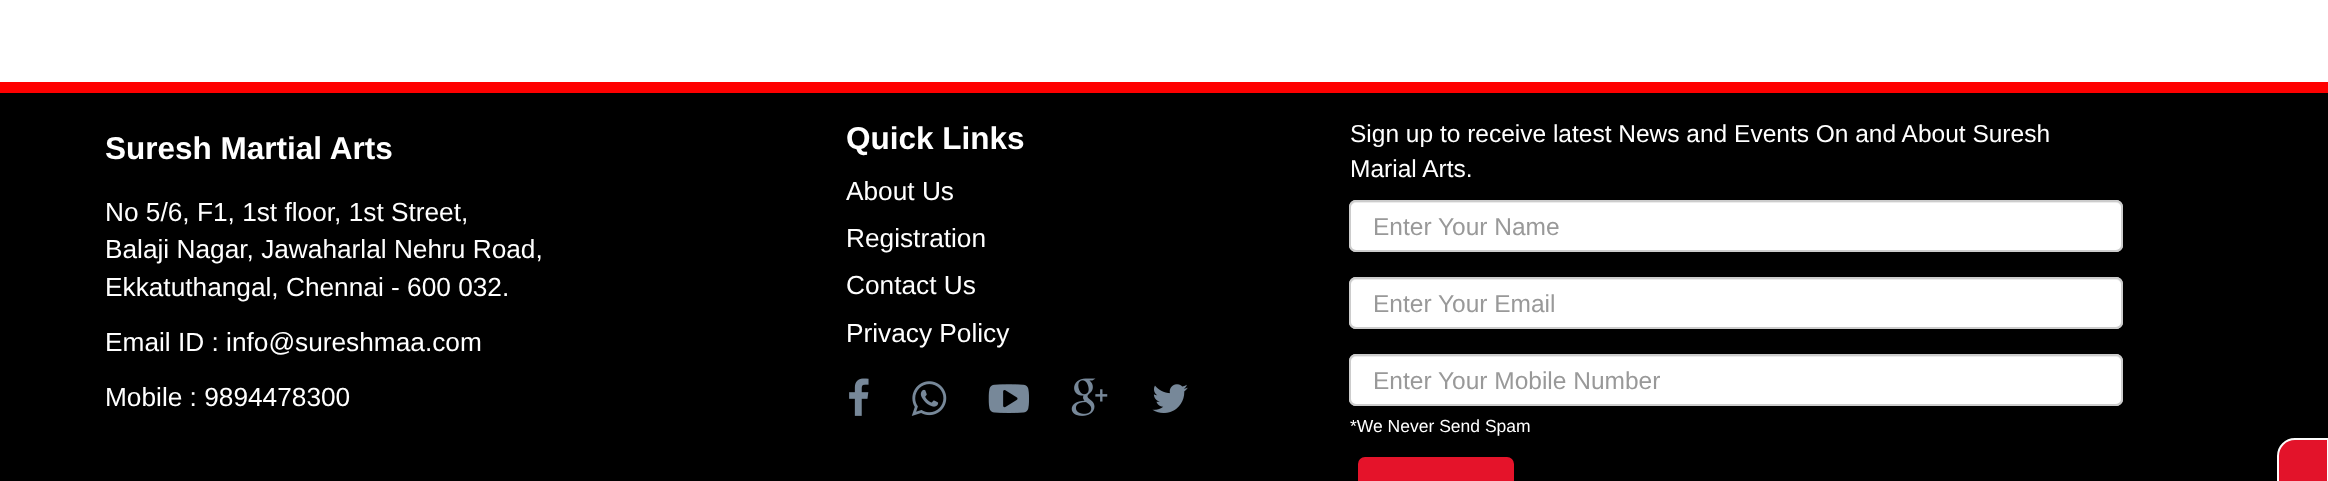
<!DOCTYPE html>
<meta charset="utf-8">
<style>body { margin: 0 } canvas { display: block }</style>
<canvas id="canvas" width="2328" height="481"></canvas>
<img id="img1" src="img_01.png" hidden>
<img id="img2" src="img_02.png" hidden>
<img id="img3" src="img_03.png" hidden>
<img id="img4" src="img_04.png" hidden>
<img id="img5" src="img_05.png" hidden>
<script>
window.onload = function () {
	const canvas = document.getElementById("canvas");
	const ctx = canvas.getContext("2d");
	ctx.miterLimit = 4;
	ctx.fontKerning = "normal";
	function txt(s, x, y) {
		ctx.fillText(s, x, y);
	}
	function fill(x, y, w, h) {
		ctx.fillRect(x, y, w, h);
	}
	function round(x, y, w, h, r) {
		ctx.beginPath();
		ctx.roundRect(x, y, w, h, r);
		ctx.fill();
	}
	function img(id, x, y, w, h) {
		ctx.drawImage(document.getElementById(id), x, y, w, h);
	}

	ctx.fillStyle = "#FFFFFF";
	fill(0, 0, 2328, 481);
	ctx.fillStyle = "#FF0000";
	fill(0, 82, 2328, 11);
	ctx.fillStyle = "#000000";
	fill(0, 93, 2328, 388);
	img("img1", 849, 378, 20, 38);
	img("img2", 911, 381, 36, 35);
	img("img3", 988, 384, 41, 29);
	img("img4", 1071, 378, 37, 38);
	img("img5", 1152, 384, 36, 29);
	ctx.fillStyle = "#FFFFFF";
	round(1349, 200, 774, 52, 7);
	ctx.fillStyle = "#ECECEC";
	ctx.beginPath();
	ctx.moveTo(1356, 203);
	ctx.lineTo(2116, 203);
	ctx.bezierCurveTo(2119, 203, 2121, 205, 2121, 208);
	ctx.bezierCurveTo(2121, 205, 2120, 201, 2116, 201);
	ctx.lineTo(1356, 201);
	ctx.bezierCurveTo(1352, 201, 1351, 205, 1351, 208);
	ctx.bezierCurveTo(1351, 205, 1353, 203, 1356, 203);
	ctx.closePath();
	ctx.fill();
	ctx.beginPath();
	ctx.roundRect(1350, 201, 772, 50, 6);
	ctx.strokeStyle = "#CCCCCC";
	ctx.lineWidth = 2;
	ctx.stroke();
	ctx.fillStyle = "#FFFFFF";
	round(1349, 277, 774, 52, 7);
	ctx.fillStyle = "#ECECEC";
	ctx.beginPath();
	ctx.moveTo(1356, 280);
	ctx.lineTo(2116, 280);
	ctx.bezierCurveTo(2119, 280, 2121, 282, 2121, 285);
	ctx.bezierCurveTo(2121, 282, 2120, 278, 2116, 278);
	ctx.lineTo(1356, 278);
	ctx.bezierCurveTo(1352, 278, 1351, 282, 1351, 285);
	ctx.bezierCurveTo(1351, 282, 1353, 280, 1356, 280);
	ctx.closePath();
	ctx.fill();
	ctx.beginPath();
	ctx.roundRect(1350, 278, 772, 50, 6);
	ctx.stroke();
	ctx.fillStyle = "#FFFFFF";
	round(1349, 354, 774, 52, 7);
	ctx.fillStyle = "#ECECEC";
	ctx.beginPath();
	ctx.moveTo(1356, 357);
	ctx.lineTo(2116, 357);
	ctx.bezierCurveTo(2119, 357, 2121, 359, 2121, 362);
	ctx.bezierCurveTo(2121, 359, 2120, 355, 2116, 355);
	ctx.lineTo(1356, 355);
	ctx.bezierCurveTo(1352, 355, 1351, 359, 1351, 362);
	ctx.bezierCurveTo(1351, 359, 1353, 357, 1356, 357);
	ctx.closePath();
	ctx.fill();
	ctx.beginPath();
	ctx.roundRect(1350, 355, 772, 50, 6);
	ctx.stroke();
	ctx.fillStyle = "#E5132A";
	ctx.beginPath();
	ctx.roundRect(1359, 458, 154, 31, 6);
	ctx.fill();
	ctx.strokeStyle = "#E5132A";
	ctx.stroke();
	ctx.fillStyle = "#E3132A";
	ctx.beginPath();
	ctx.moveTo(2295, 439);
	ctx.lineTo(2328, 439);
	ctx.lineTo(2328, 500);
	ctx.lineTo(2295, 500);
	ctx.bezierCurveTo(2285.5, 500, 2278, 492.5, 2278, 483);
	ctx.lineTo(2278, 456);
	ctx.bezierCurveTo(2278, 446.5, 2285.5, 439, 2295, 439);
	ctx.closePath();
	ctx.fill();
	ctx.strokeStyle = "#FCFCFC";
	ctx.stroke();
	ctx.font = "bold 31.5px Liberation Sans";
	ctx.fillStyle = "#FFFFFF";
	txt("Suresh Martial Arts", 105, 159);
	ctx.font = "26.25px Liberation Sans";
	txt("No 5/6, F1, 1st floor, 1st Street,", 105, 221);
	txt("Balaji Nagar, Jawaharlal Nehru Road,", 105, 258);
	txt("Ekkatuthangal, Chennai - 600 032.", 105, 296);
	txt("Email ID : info@sureshmaa.com", 105, 351);
	txt("Mobile : 9894478300", 105, 406);
	ctx.font = "bold 31.5px Liberation Sans";
	txt("Quick Links", 846, 149);
	ctx.font = "26.25px Liberation Sans";
	txt("About Us", 846, 200);
	txt("Registration", 846, 247);
	txt("Contact Us", 846, 294);
	txt("Privacy Policy", 846, 342);
	ctx.font = "24.5px Liberation Sans";
	txt("Sign up to receive latest News and Events On and About Suresh", 1350, 142);
	txt("Marial Arts.", 1350, 177);
	ctx.fillStyle = "#999999";
	txt("Enter Your Name", 1373, 235);
	txt("Enter Your Email", 1373, 312);
	txt("Enter Your Mobile Number", 1373, 389);
	ctx.font = "17.5px Liberation Sans";
	ctx.fillStyle = "#FFFFFF";
	txt("*We Never Send Spam", 1350, 432);
};
</script>
